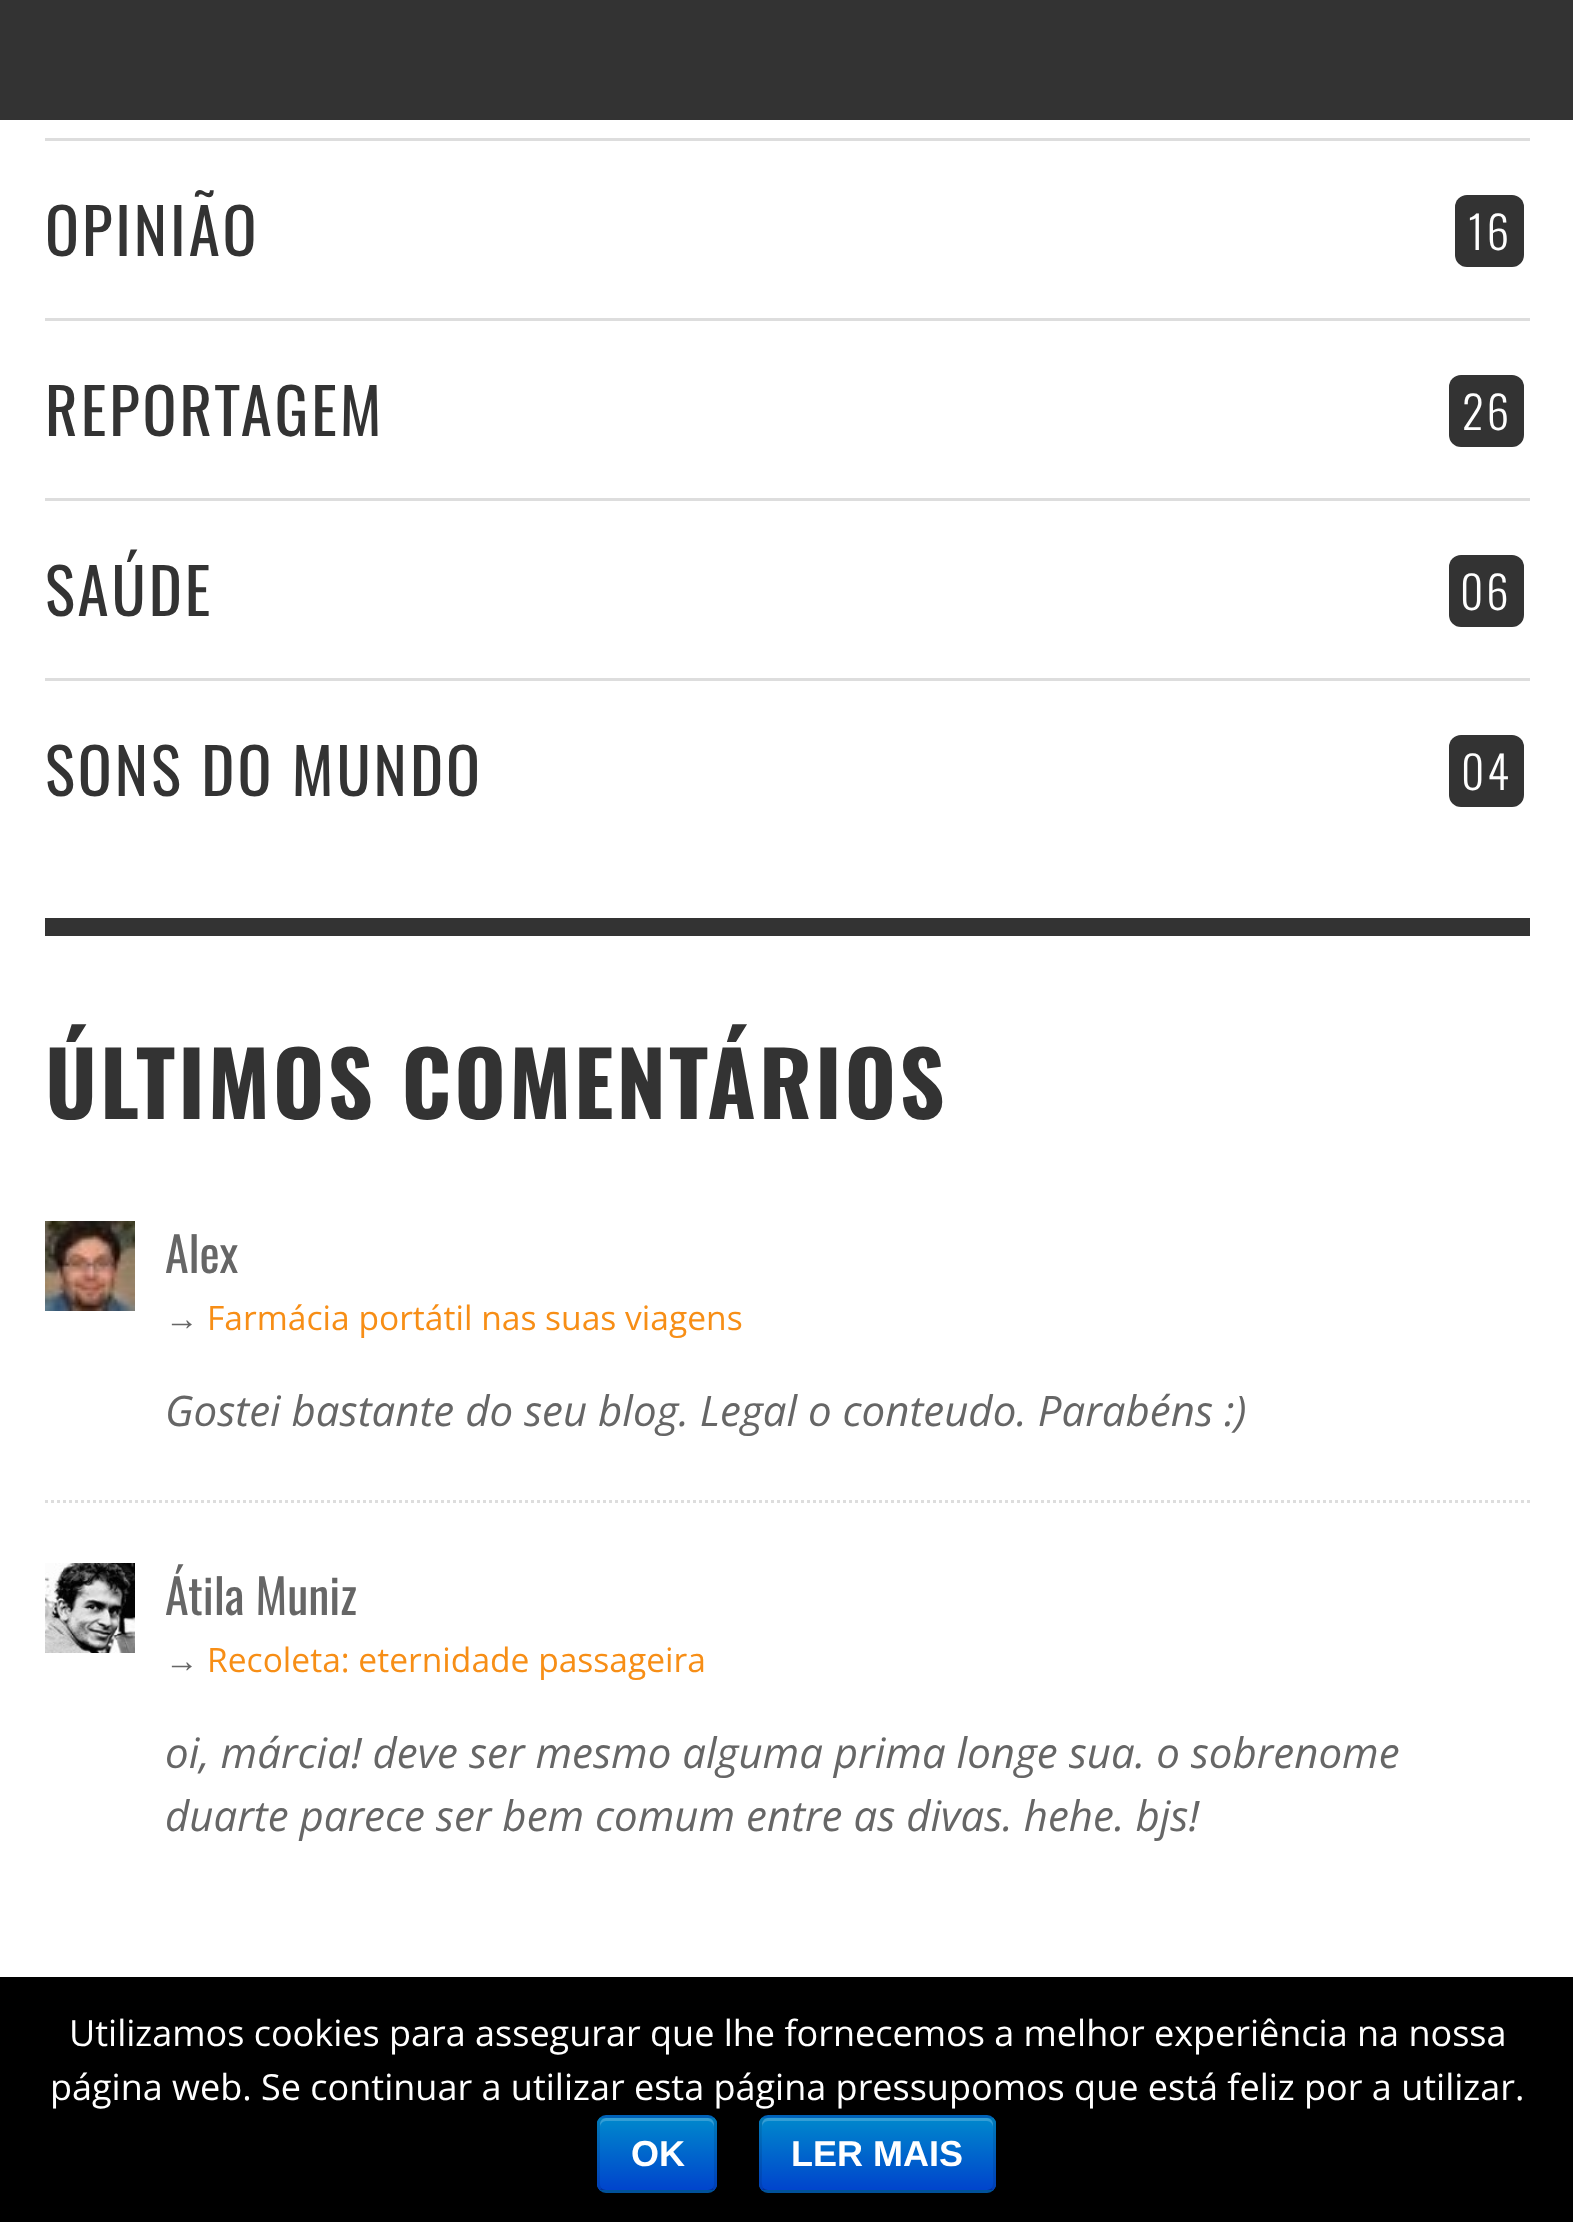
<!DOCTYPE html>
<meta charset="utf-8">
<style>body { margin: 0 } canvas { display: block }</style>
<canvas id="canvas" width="1573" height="2222"></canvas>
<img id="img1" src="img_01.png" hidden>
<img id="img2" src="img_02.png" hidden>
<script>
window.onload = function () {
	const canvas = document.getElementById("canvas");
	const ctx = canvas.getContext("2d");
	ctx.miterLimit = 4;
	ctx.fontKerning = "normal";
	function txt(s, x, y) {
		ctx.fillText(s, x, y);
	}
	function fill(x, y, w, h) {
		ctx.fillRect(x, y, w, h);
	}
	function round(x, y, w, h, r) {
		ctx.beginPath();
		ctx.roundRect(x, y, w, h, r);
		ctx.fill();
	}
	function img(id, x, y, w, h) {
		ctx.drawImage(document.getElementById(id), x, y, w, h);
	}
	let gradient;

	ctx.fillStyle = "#FFFFFF";
	fill(0, 0, 1573, 2222);
	ctx.fillStyle = "#333333";
	fill(0, 0, 1573, 120);
	ctx.fillStyle = "#DDDDDD";
	fill(45, 138, 1485, 3);
	ctx.fillStyle = "#333333";
	round(1455, 195, 69, 72, 12);
	ctx.fillStyle = "#DDDDDD";
	fill(45, 318, 1485, 3);
	ctx.fillStyle = "#333333";
	round(1449, 375, 75, 72, 12);
	ctx.fillStyle = "#DDDDDD";
	fill(45, 498, 1485, 3);
	ctx.fillStyle = "#333333";
	round(1449, 555, 75, 72, 12);
	ctx.fillStyle = "#DDDDDD";
	fill(45, 678, 1485, 3);
	ctx.fillStyle = "#333333";
	round(1449, 735, 75, 72, 12);
	fill(45, 918, 1485, 18);
	img("img1", 45, 1221, 90, 90);
	ctx.beginPath();
	ctx.moveTo(45, 1501.5);
	ctx.lineTo(1530, 1501.5);
	ctx.strokeStyle = "#DDDDDD";
	ctx.lineWidth = 3;
	ctx.setLineDash([3, 3]);
	ctx.stroke();
	img("img2", 45, 1563, 90, 90);
	ctx.fillStyle = "#000000";
	fill(0, 1977, 1573, 245);
	ctx.fillStyle = "#006DCC";
	round(597, 2115, 120, 78, 9);
	ctx.save();
	ctx.beginPath();
	ctx.roundRect(597, 2115, 120, 78, 9);
	ctx.clip();
	gradient = ctx.createLinearGradient(657, 2118, 657, 2190);
	gradient.addColorStop(0, "#0088CC");
	gradient.addColorStop(1, "#0044CC");
	ctx.fillStyle = gradient;
	fill(597, 2118, 120, 72);
	ctx.restore();
	ctx.fillStyle = "rgba(255, 255, 255, 0.2)";
	ctx.beginPath();
	ctx.moveTo(606, 2121);
	ctx.lineTo(708, 2121);
	ctx.bezierCurveTo(711, 2121, 714, 2124, 714, 2127);
	ctx.lineTo(714, 2124);
	ctx.bezierCurveTo(714, 2121, 711, 2118, 708, 2118);
	ctx.lineTo(606, 2118);
	ctx.bezierCurveTo(603, 2118, 600, 2121, 600, 2124);
	ctx.lineTo(600, 2127);
	ctx.bezierCurveTo(600, 2124, 603, 2121, 606, 2121);
	ctx.closePath();
	ctx.fill();
	ctx.beginPath();
	ctx.moveTo(713.5, 2189.5);
	ctx.bezierCurveTo(712, 2190.5, 710, 2191.5, 708, 2191.5);
	ctx.lineTo(606, 2191.5);
	ctx.bezierCurveTo(604, 2191.5, 602, 2190.5, 600.5, 2189.5);
	ctx.strokeStyle = "rgba(0, 0, 0, 0.25)";
	ctx.setLineDash([]);
	ctx.stroke();
	ctx.beginPath();
	ctx.moveTo(600.5, 2189.5);
	ctx.bezierCurveTo(599.5, 2188, 598.5, 2186, 598.5, 2184);
	ctx.lineTo(598.5, 2124);
	ctx.bezierCurveTo(598.5, 2122, 599.5, 2120, 600.5, 2118.5);
	ctx.bezierCurveTo(602, 2117.5, 604, 2116.5, 606, 2116.5);
	ctx.lineTo(708, 2116.5);
	ctx.bezierCurveTo(710, 2116.5, 712, 2117.5, 713.5, 2118.5);
	ctx.bezierCurveTo(714.5, 2120, 715.5, 2122, 715.5, 2124);
	ctx.lineTo(715.5, 2184);
	ctx.bezierCurveTo(715.5, 2186, 714.5, 2188, 713.5, 2189.5);
	ctx.strokeStyle = "rgba(0, 0, 0, 0.1)";
	ctx.stroke();
	ctx.fillStyle = "#006DCC";
	round(759, 2115, 237, 78, 9);
	ctx.save();
	ctx.beginPath();
	ctx.roundRect(759, 2115, 237, 78, 9);
	ctx.clip();
	gradient = ctx.createLinearGradient(878, 2118, 878, 2190);
	gradient.addColorStop(0, "#0088CC");
	gradient.addColorStop(1, "#0044CC");
	ctx.fillStyle = gradient;
	fill(759, 2118, 237, 72);
	ctx.restore();
	ctx.fillStyle = "rgba(255, 255, 255, 0.2)";
	ctx.beginPath();
	ctx.moveTo(768, 2121);
	ctx.lineTo(987, 2121);
	ctx.bezierCurveTo(990, 2121, 993, 2124, 993, 2127);
	ctx.lineTo(993, 2124);
	ctx.bezierCurveTo(993, 2121, 990, 2118, 987, 2118);
	ctx.lineTo(768, 2118);
	ctx.bezierCurveTo(765, 2118, 762, 2121, 762, 2124);
	ctx.lineTo(762, 2127);
	ctx.bezierCurveTo(762, 2124, 765, 2121, 768, 2121);
	ctx.closePath();
	ctx.fill();
	ctx.beginPath();
	ctx.moveTo(992.5, 2189.5);
	ctx.bezierCurveTo(991, 2190.5, 989, 2191.5, 987, 2191.5);
	ctx.lineTo(768, 2191.5);
	ctx.bezierCurveTo(766, 2191.5, 764, 2190.5, 762.5, 2189.5);
	ctx.strokeStyle = "rgba(0, 0, 0, 0.25)";
	ctx.stroke();
	ctx.beginPath();
	ctx.moveTo(762.5, 2189.5);
	ctx.bezierCurveTo(759, 2185.5, 760.5, 2178, 760.5, 2174);
	ctx.lineTo(760.5, 2154);
	ctx.bezierCurveTo(760.5, 2107.5, 754, 2116.5, 804.5, 2116.5);
	ctx.lineTo(987, 2116.5);
	ctx.bezierCurveTo(996.5, 2116.5, 994.5, 2128, 994.5, 2134);
	ctx.lineTo(994.5, 2174);
	ctx.bezierCurveTo(994.5, 2178, 996, 2185.5, 992.5, 2189.5);
	ctx.strokeStyle = "rgba(0, 0, 0, 0.1)";
	ctx.stroke();
	ctx.letterSpacing = "3px";
	ctx.font = "63px Oswald";
	ctx.fillStyle = "#333333";
	txt("OPINIÃO", 45, 256);
	ctx.font = "300 45px Oswald";
	ctx.fillStyle = "#FFFFFF";
	txt("16", 1468, 250);
	ctx.font = "63px Oswald";
	ctx.fillStyle = "#333333";
	txt("REPORTAGEM", 45, 436);
	ctx.font = "300 45px Oswald";
	ctx.fillStyle = "#FFFFFF";
	txt("26", 1462, 430);
	ctx.font = "63px Oswald";
	ctx.fillStyle = "#333333";
	txt("SAÚDE", 45, 616);
	ctx.font = "300 45px Oswald";
	ctx.fillStyle = "#FFFFFF";
	txt("06", 1460, 610);
	ctx.font = "63px Oswald";
	ctx.fillStyle = "#333333";
	txt("SONS DO MUNDO", 45, 796);
	ctx.font = "300 45px Oswald";
	ctx.fillStyle = "#FFFFFF";
	txt("04", 1461, 790);
	ctx.font = "bold 88.25px Oswald";
	ctx.fillStyle = "#333333";
	txt("ÚLTIMOS COMENTÁRIOS", 45, 1119);
	ctx.letterSpacing = "0px";
	ctx.font = "48px Oswald";
	ctx.fillStyle = "#666666";
	txt("Alex", 165, 1273);
	ctx.font = "33.6px Liberation Serif";
	txt("→", 165, 1330);
	ctx.font = "33.6px Open Sans";
	ctx.fillStyle = "#F78E16";
	txt("Farmácia portátil nas suas viagens", 207, 1330);
	ctx.font = "italic 42px Open Sans";
	ctx.fillStyle = "#666666";
	txt("Gostei bastante do seu blog. Legal o conteudo. Parabéns :)", 165, 1426);
	ctx.font = "48px Oswald";
	txt("Átila Muniz", 165, 1615);
	ctx.font = "33.6px Liberation Serif";
	txt("→", 165, 1672);
	ctx.font = "33.6px Open Sans";
	ctx.fillStyle = "#F78E16";
	txt("Recoleta: eternidade passageira", 207, 1672);
	ctx.font = "italic 42px Open Sans";
	ctx.fillStyle = "#666666";
	txt("oi, márcia! deve ser mesmo alguma prima longe sua. o sobrenome", 165, 1768);
	txt("duarte parece ser bem comum entre as divas. hehe. bjs!", 165, 1831);
	ctx.font = "36px Open Sans";
	ctx.fillStyle = "#FFFFFF";
	txt("Utilizamos cookies para assegurar que lhe fornecemos a melhor experiência na nossa", 69, 2046);
	txt("página web. Se continuar a utilizar esta página pressupomos que está feliz por a utilizar.", 50, 2100);
	ctx.font = "bold 36px Liberation Sans";
	txt("OK", 631, 2166);
	txt("LER MAIS", 791, 2166);
};
</script>
